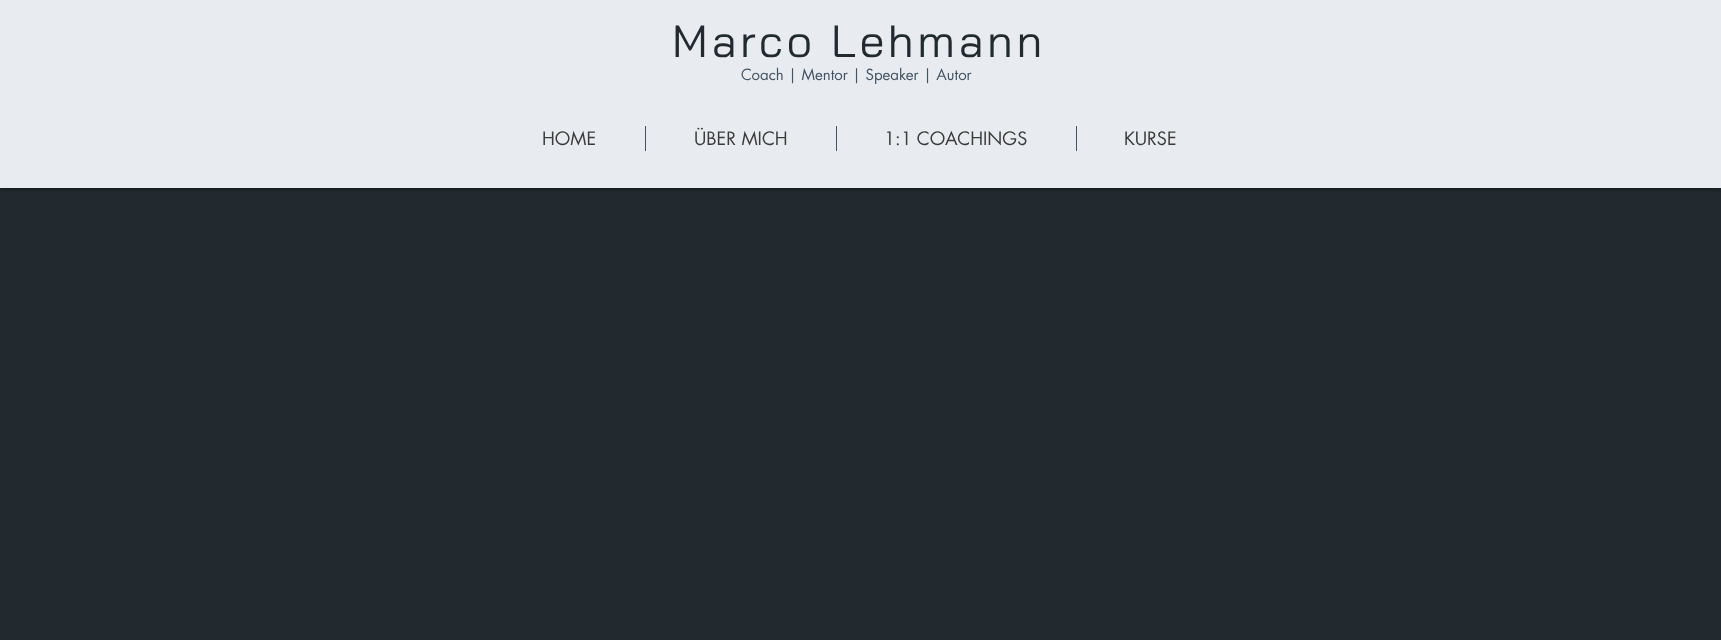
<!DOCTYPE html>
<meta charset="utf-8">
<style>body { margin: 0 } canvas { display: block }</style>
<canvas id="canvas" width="1721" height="640"></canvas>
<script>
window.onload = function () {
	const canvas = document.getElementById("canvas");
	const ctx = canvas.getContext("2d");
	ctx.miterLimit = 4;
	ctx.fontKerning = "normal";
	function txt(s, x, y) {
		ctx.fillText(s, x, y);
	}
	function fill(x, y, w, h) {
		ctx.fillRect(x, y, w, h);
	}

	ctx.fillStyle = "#222A30";
	fill(0, 0, 1721, 640);
	ctx.fillStyle = "rgba(0, 0, 0, 0.7)";
	ctx.filter = "blur(2.5px)";
	ctx.beginPath();
	ctx.rect(0, 0, 1721, 188);
	ctx.fill();
	ctx.filter = "none";
	ctx.fillStyle = "#E8ECF0";
	fill(0, 0, 1721, 188);
	ctx.fillStyle = "#445361";
	fill(645, 126, 1, 25);
	fill(836, 126, 1, 25);
	fill(1076, 126, 1, 25);
	ctx.letterSpacing = "3.6px";
	ctx.font = "45px Bai Jamjuree";
	ctx.fillStyle = "#222A30";
	txt("Marco Lehmann", 672, 57);
	ctx.letterSpacing = "0px";
	ctx.font = "15px futura";
	ctx.fillStyle = "#445361";
	txt("Coach | Mentor | Speaker | Autor", 741, 80);
	ctx.font = "18px futura";
	ctx.fillStyle = "#3B3B3B";
	txt("HOME", 542, 145);
	txt("ÜBER MICH", 694, 145);
	txt("1:1 COACHINGS", 884, 145);
	txt("KURSE", 1124, 145);
};
</script>
